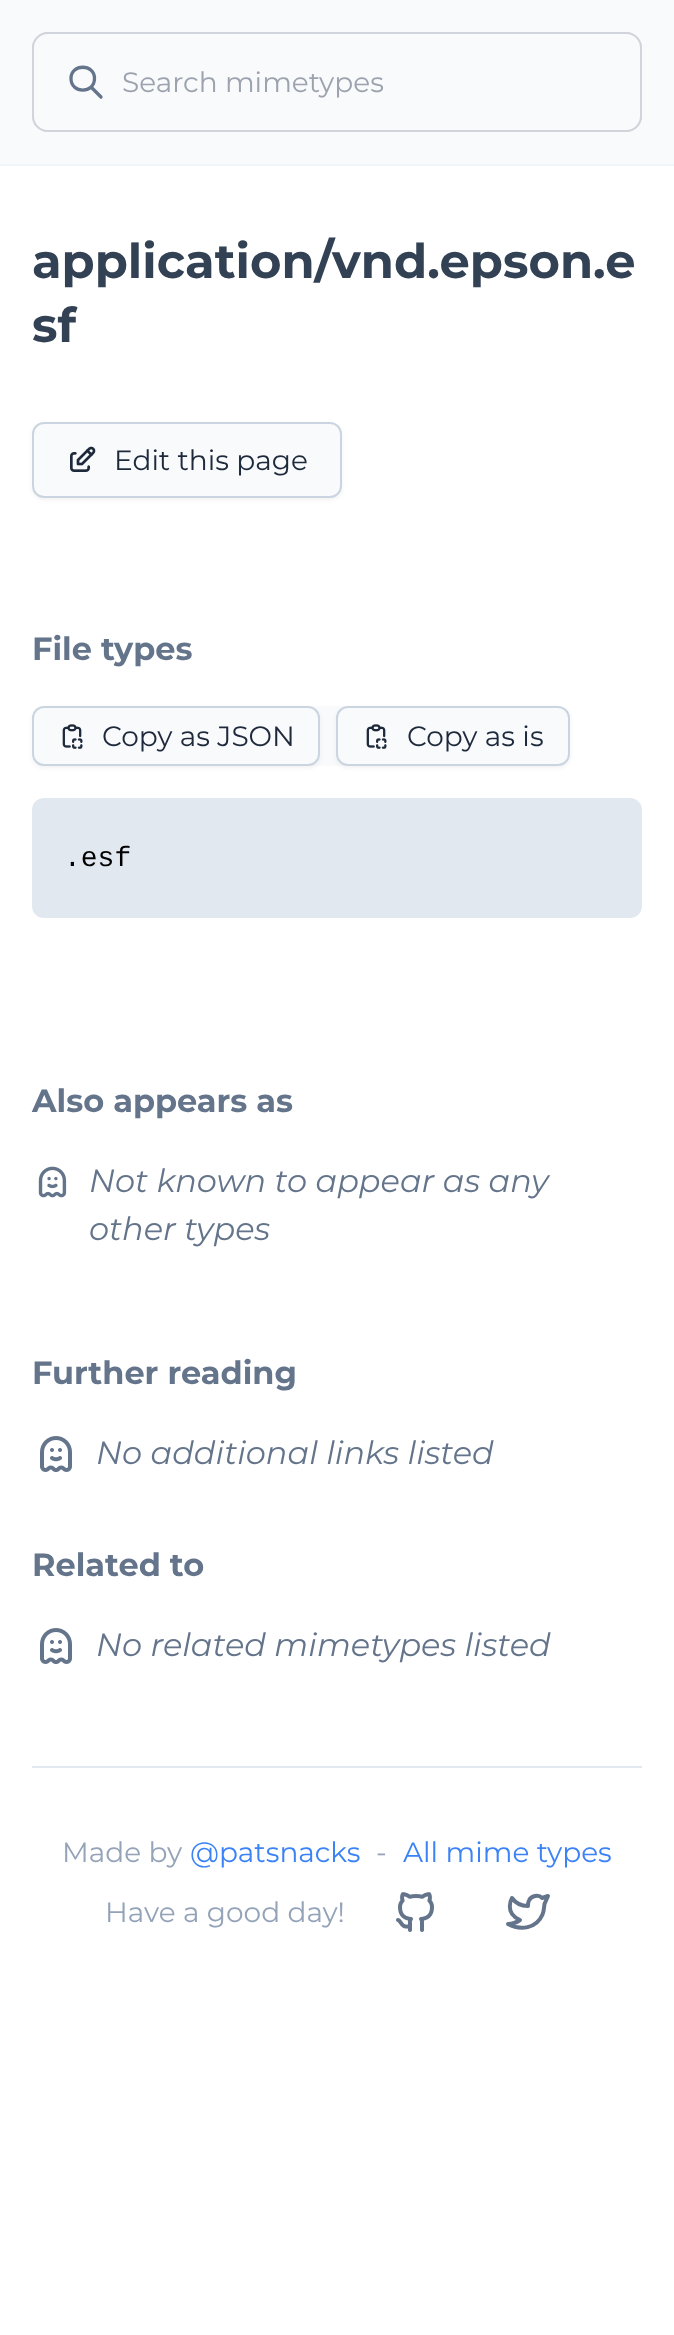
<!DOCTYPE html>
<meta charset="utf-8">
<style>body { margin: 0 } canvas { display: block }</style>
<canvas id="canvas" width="674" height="2335"></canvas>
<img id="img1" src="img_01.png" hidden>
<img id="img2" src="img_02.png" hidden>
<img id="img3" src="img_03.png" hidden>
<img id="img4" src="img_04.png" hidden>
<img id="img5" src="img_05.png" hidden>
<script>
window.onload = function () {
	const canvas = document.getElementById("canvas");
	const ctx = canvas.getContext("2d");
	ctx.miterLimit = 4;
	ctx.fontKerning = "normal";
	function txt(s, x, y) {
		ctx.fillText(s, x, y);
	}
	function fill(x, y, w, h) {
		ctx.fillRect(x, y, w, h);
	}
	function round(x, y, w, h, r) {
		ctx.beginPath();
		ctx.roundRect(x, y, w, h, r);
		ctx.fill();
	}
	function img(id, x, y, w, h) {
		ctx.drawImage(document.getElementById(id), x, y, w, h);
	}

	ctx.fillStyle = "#FFFFFF";
	fill(0, 0, 674, 2335);
	ctx.fillStyle = "#F9FAFB";
	fill(0, 0, 674, 164);
	ctx.fillStyle = "#F1F5F9";
	fill(0, 164, 674, 2);
	ctx.beginPath();
	ctx.roundRect(33, 33, 98, 98, 15);
	ctx.strokeStyle = "#D1D5DB";
	ctx.lineWidth = 2;
	ctx.stroke();
	ctx.beginPath();
	ctx.roundRect(543, 33, 98, 98, 15);
	ctx.stroke();
	ctx.fillStyle = "#F9FAFB";
	ctx.beginPath();
	ctx.roundRect(33, 33, 608, 98, 15);
	ctx.fill();
	ctx.stroke();
	ctx.beginPath();
	ctx.moveTo(71, 78.5);
	ctx.bezierCurveTo(71, 94, 94.5, 94, 94.5, 78.5);
	ctx.bezierCurveTo(94.5, 63.5, 71, 63.5, 71, 78.5);
	ctx.moveTo(101, 97);
	ctx.lineTo(91, 87);
	ctx.strokeStyle = "#64748B";
	ctx.lineWidth = 3.3;
	ctx.lineCap = "round";
	ctx.lineJoin = "round";
	ctx.stroke();
	ctx.fillStyle = "rgba(0, 0, 0, 0.05)";
	ctx.filter = "blur(2px)";
	ctx.beginPath();
	ctx.roundRect(32, 424, 310, 76, 12);
	ctx.fill();
	ctx.filter = "none";
	ctx.fillStyle = "#F8FAFC";
	ctx.beginPath();
	ctx.roundRect(33, 423, 308, 74, 11);
	ctx.fill();
	ctx.strokeStyle = "#CBD5E1";
	ctx.lineWidth = 2;
	ctx.lineJoin = "miter";
	ctx.stroke();
	img("img1", 70, 446, 26, 26);
	round(32, 706, 538, 60, 16);
	ctx.fillStyle = "rgba(0, 0, 0, 0.05)";
	ctx.filter = "blur(2px)";
	ctx.beginPath();
	ctx.roundRect(32, 708, 288, 60, 12);
	ctx.fill();
	ctx.filter = "none";
	ctx.fillStyle = "#F8FAFC";
	ctx.beginPath();
	ctx.roundRect(33, 707, 286, 58, 11);
	ctx.fill();
	ctx.stroke();
	img("img2", 62, 724, 21, 25);
	ctx.fillStyle = "rgba(0, 0, 0, 0.05)";
	ctx.filter = "blur(2px)";
	ctx.beginPath();
	ctx.roundRect(336, 708, 234, 60, 12);
	ctx.fill();
	ctx.filter = "none";
	ctx.fillStyle = "#F8FAFC";
	ctx.beginPath();
	ctx.roundRect(337, 707, 232, 58, 11);
	ctx.fill();
	ctx.stroke();
	img("img2", 366, 724, 21, 25);
	ctx.fillStyle = "#E2E8F0";
	round(32, 798, 610, 120, 12);
	img("img3", 38, 1166, 29, 32);
	img("img4", 40, 1436, 32, 36);
	img("img4", 40, 1628, 32, 36);
	fill(32, 1766, 610, 2);
	img("img5", 396, 1892, 38, 40);
	ctx.beginPath();
	ctx.moveTo(548, 1896);
	ctx.lineTo(542, 1898);
	ctx.bezierCurveTo(538.5, 1894, 531, 1896, 529, 1900.5);
	ctx.bezierCurveTo(528, 1902, 528, 1904, 528, 1906);
	ctx.bezierCurveTo(521.5, 1906, 515.5, 1903, 512, 1898);
	ctx.bezierCurveTo(512, 1898, 503.5, 1913, 520, 1920);
	ctx.bezierCurveTo(516.5, 1922.5, 512.5, 1924, 508, 1924);
	ctx.bezierCurveTo(520.5, 1931, 536.5, 1928.5, 542.5, 1914.5);
	ctx.bezierCurveTo(544, 1911, 544, 1907.5, 544.5, 1904);
	ctx.closePath();
	ctx.strokeStyle = "#64748B";
	ctx.lineWidth = 4;
	ctx.lineJoin = "round";
	ctx.stroke();
	ctx.font = "28px Montserrat";
	ctx.fillStyle = "#9CA3AF";
	txt("Search mimetypes", 122, 92);
	ctx.font = "bold 48px Montserrat";
	ctx.fillStyle = "#334155";
	txt("application/vnd.epson.e", 32, 278);
	txt("sf", 32, 342);
	ctx.font = "28px Montserrat";
	ctx.fillStyle = "#1E293B";
	txt("Edit this page", 114, 470);
	ctx.font = "bold 32px Montserrat";
	ctx.fillStyle = "#64748B";
	txt("File types", 32, 660);
	ctx.font = "28px Montserrat";
	ctx.fillStyle = "#1E293B";
	txt("Copy as JSON", 102, 746);
	txt("Copy as is", 407, 746);
	ctx.font = "28px Liberation Mono";
	ctx.fillStyle = "#000000";
	txt(".esf", 64, 866);
	ctx.font = "bold 32px Montserrat";
	ctx.fillStyle = "#64748B";
	txt("Also appears as", 32, 1112);
	ctx.font = "italic 32px Montserrat";
	txt("Not known to appear as any", 89, 1192);
	txt("other types", 89, 1240);
	ctx.font = "bold 32px Montserrat";
	txt("Further reading", 32, 1384);
	ctx.font = "italic 32px Montserrat";
	txt("No additional links listed", 96, 1464);
	ctx.font = "bold 32px Montserrat";
	txt("Related to", 32, 1576);
	ctx.font = "italic 32px Montserrat";
	txt("No related mimetypes listed", 96, 1656);
	ctx.font = "28px Montserrat";
	ctx.fillStyle = "#94A3B8";
	txt("Made by", 62, 1862);
	ctx.fillStyle = "#3B82F6";
	txt("@patsnacks", 190, 1862);
	ctx.fillStyle = "#94A3B8";
	txt("-", 376, 1862);
	ctx.fillStyle = "#3B82F6";
	txt("All mime types", 403, 1862);
	ctx.fillStyle = "#94A3B8";
	txt("Have a good day!", 105, 1922);
};
</script>
